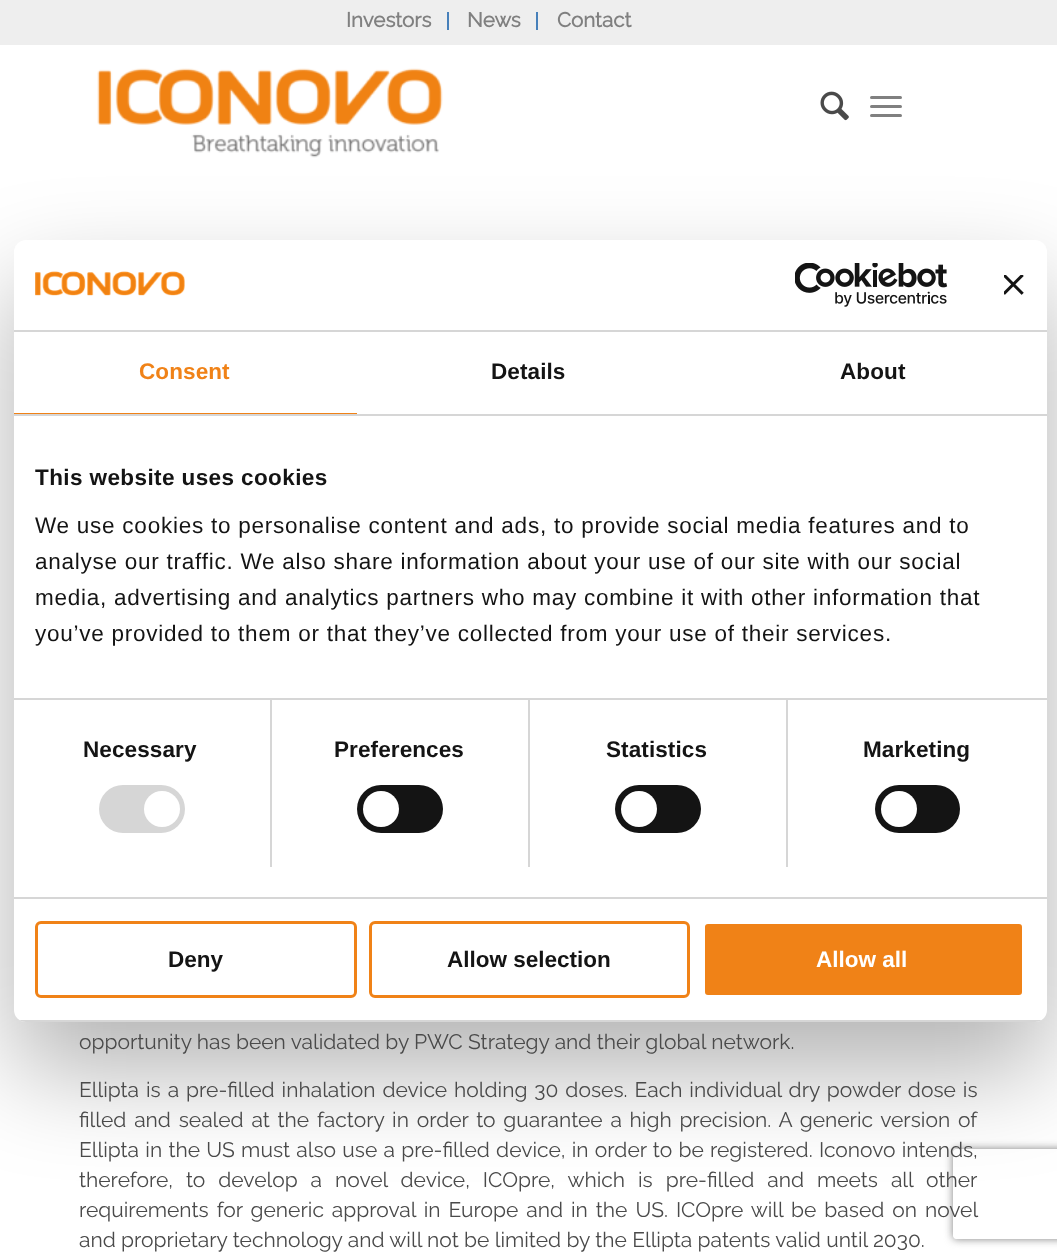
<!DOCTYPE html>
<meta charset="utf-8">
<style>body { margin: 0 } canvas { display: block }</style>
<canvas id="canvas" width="1057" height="1260"></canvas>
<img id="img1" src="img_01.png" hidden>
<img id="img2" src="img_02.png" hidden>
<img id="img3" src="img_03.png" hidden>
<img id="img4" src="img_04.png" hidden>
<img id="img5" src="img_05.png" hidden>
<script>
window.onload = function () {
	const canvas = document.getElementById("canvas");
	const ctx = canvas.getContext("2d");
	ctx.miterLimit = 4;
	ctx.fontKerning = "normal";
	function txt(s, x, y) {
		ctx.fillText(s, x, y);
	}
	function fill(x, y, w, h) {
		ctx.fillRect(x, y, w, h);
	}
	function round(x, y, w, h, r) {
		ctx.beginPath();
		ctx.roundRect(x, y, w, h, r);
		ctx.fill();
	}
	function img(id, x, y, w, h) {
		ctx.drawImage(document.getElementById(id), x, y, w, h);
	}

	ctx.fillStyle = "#FFFFFF";
	fill(0, 0, 1057, 1260);
	ctx.fillStyle = "#EEEEEE";
	fill(0, 0, 1057, 45);
	ctx.fillStyle = "#4780BA";
	fill(447, 12, 2, 18);
	fill(536, 12, 2, 18);
	img("img1", 97, 68, 346, 90);
	img("img2", 820, 91, 29, 30);
	ctx.fillStyle = "#808080";
	round(870, 105, 32, 3, 1.5);
	round(870, 96, 32, 3, 1.5);
	round(870, 114, 32, 3, 1.5);
	ctx.fillStyle = "rgba(0, 0, 0, 0.3)";
	ctx.filter = "blur(51px)";
	ctx.beginPath();
	ctx.roundRect(14, 288, 1033, 782, 12);
	ctx.fill();
	ctx.filter = "none";
	ctx.fillStyle = "#FFFFFF";
	round(14, 240, 1033, 782, 12);
	ctx.fillStyle = "#D6D6D6";
	fill(14, 330, 1033, 2);
	img("img3", 35, 271, 150, 25);
	img("img4", 795, 263, 153, 44);
	img("img5", 1004, 275, 20, 20);
	fill(14, 414, 1033, 2);
	ctx.fillStyle = "#F08217";
	fill(14, 413, 343, 1);
	ctx.fillStyle = "#D6D6D6";
	fill(270, 699, 2, 168);
	fill(528, 699, 2, 168);
	fill(786, 699, 2, 168);
	fill(14, 698, 1033, 2);
	fill(14, 897, 1033, 2);
	round(99, 785, 86, 48, 24);
	ctx.fillStyle = "#FFFFFF";
	ctx.beginPath();
	ctx.arc(162, 809, 18, 0, Math.PI * 2);
	ctx.fill();
	ctx.fillStyle = "#141414";
	round(357, 785, 86, 48, 24);
	ctx.fillStyle = "#FFFFFF";
	ctx.beginPath();
	ctx.arc(381, 809, 18, 0, Math.PI * 2);
	ctx.fill();
	ctx.fillStyle = "#141414";
	round(615, 785, 86, 48, 24);
	ctx.fillStyle = "#FFFFFF";
	ctx.beginPath();
	ctx.arc(639, 809, 18, 0, Math.PI * 2);
	ctx.fill();
	ctx.fillStyle = "#141414";
	round(875, 785, 85, 48, 24);
	ctx.fillStyle = "#FFFFFF";
	ctx.beginPath();
	ctx.arc(899, 809, 18, 0, Math.PI * 2);
	ctx.fill();
	ctx.save();
	ctx.beginPath();
	ctx.roundRect(14, 240, 1033, 782, 12);
	ctx.clip();
	ctx.fillStyle = "#D6D6D6";
	fill(14, 1020, 1033, 2);
	ctx.restore();
	ctx.beginPath();
	ctx.roundRect(36.5, 922.5, 319, 74, 4.5);
	ctx.strokeStyle = "#F08217";
	ctx.lineWidth = 3;
	ctx.stroke();
	ctx.beginPath();
	ctx.roundRect(370.5, 922.5, 318, 74, 4.5);
	ctx.stroke();
	ctx.fillStyle = "#F08217";
	ctx.beginPath();
	ctx.roundRect(703.5, 922.5, 320, 74, 4.5);
	ctx.fill();
	ctx.strokeStyle = "#FFFFFF";
	ctx.stroke();
	ctx.save();
	ctx.beginPath();
	ctx.moveTo(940, 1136);
	ctx.lineTo(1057, 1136);
	ctx.lineTo(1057, 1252);
	ctx.lineTo(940, 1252);
	ctx.closePath();
	ctx.moveTo(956, 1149);
	ctx.lineTo(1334, 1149);
	ctx.bezierCurveTo(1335.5, 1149, 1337, 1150.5, 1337, 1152);
	ctx.lineTo(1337, 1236);
	ctx.bezierCurveTo(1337, 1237.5, 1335.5, 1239, 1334, 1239);
	ctx.lineTo(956, 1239);
	ctx.bezierCurveTo(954.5, 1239, 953, 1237.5, 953, 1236);
	ctx.lineTo(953, 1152);
	ctx.bezierCurveTo(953, 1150.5, 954.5, 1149, 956, 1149);
	ctx.closePath();
	ctx.clip("evenodd");
	ctx.fillStyle = "#808080";
	ctx.filter = "blur(4px)";
	ctx.beginPath();
	ctx.roundRect(953, 1149, 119, 90, 3);
	ctx.fill();
	ctx.filter = "none";
	ctx.restore();
	ctx.font = "bold 20.5px Raleway";
	ctx.fillStyle = "#808080";
	txt("Investors", 346, 27);
	txt("News", 467, 27);
	txt("Contact", 557, 27);
	ctx.font = "100 21px Raleway";
	ctx.fillStyle = "#4A4A4A";
	txt("opportunity has been validated by PWC Strategy and their global network.", 79, 1049);
	ctx.wordSpacing = "1.6px";
	txt("Ellipta is a pre-filled inhalation device holding 30 doses. Each individual dry powder dose is", 79, 1097);
	ctx.wordSpacing = "2.4px";
	txt("filled and sealed at the factory in order to guarantee a high precision. A generic version of", 79, 1127);
	ctx.wordSpacing = "0.9px";
	txt("Ellipta in the US must also use a pre-filled device, in order to be registered. Iconovo intends,", 79, 1157);
	ctx.wordSpacing = "7.6px";
	txt("therefore, to develop a novel device, ICOpre, which is pre-filled and meets all other", 79, 1187);
	ctx.wordSpacing = "2.6px";
	txt("requirements for generic approval in Europe and in the US. ICOpre will be based on novel", 79, 1217);
	ctx.wordSpacing = "0px";
	txt("and proprietary technology and will not be limited by the Ellipta patents valid until 2030.", 79, 1247);
	ctx.letterSpacing = "0.1px";
	ctx.font = "bold 22.5px Liberation Sans";
	ctx.fillStyle = "#F08217";
	txt("Consent", 139, 379);
	ctx.fillStyle = "#141414";
	txt("Details", 491, 379);
	txt("About", 840, 379);
	ctx.letterSpacing = "0.4px";
	txt("This website uses cookies", 35, 485);
	ctx.letterSpacing = "0.75px";
	ctx.font = "22.5px Liberation Sans";
	txt("We use cookies to personalise content and ads, to provide social media features and to", 35, 533);
	txt("analyse our traffic. We also share information about your use of our site with our social", 35, 569);
	txt("media, advertising and analytics partners who may combine it with other information that", 35, 605);
	txt("you’ve provided to them or that they’ve collected from your use of their services.", 35, 641);
	ctx.letterSpacing = "0.1px";
	ctx.font = "bold 22.5px Liberation Sans";
	txt("Necessary", 83, 757);
	txt("Preferences", 334, 757);
	txt("Statistics", 606, 757);
	txt("Marketing", 863, 757);
	ctx.letterSpacing = "0px";
	txt("Deny", 168, 967);
	txt("Allow selection", 447, 967);
	ctx.fillStyle = "#FFFFFF";
	txt("Allow all", 816, 967);
};
</script>
